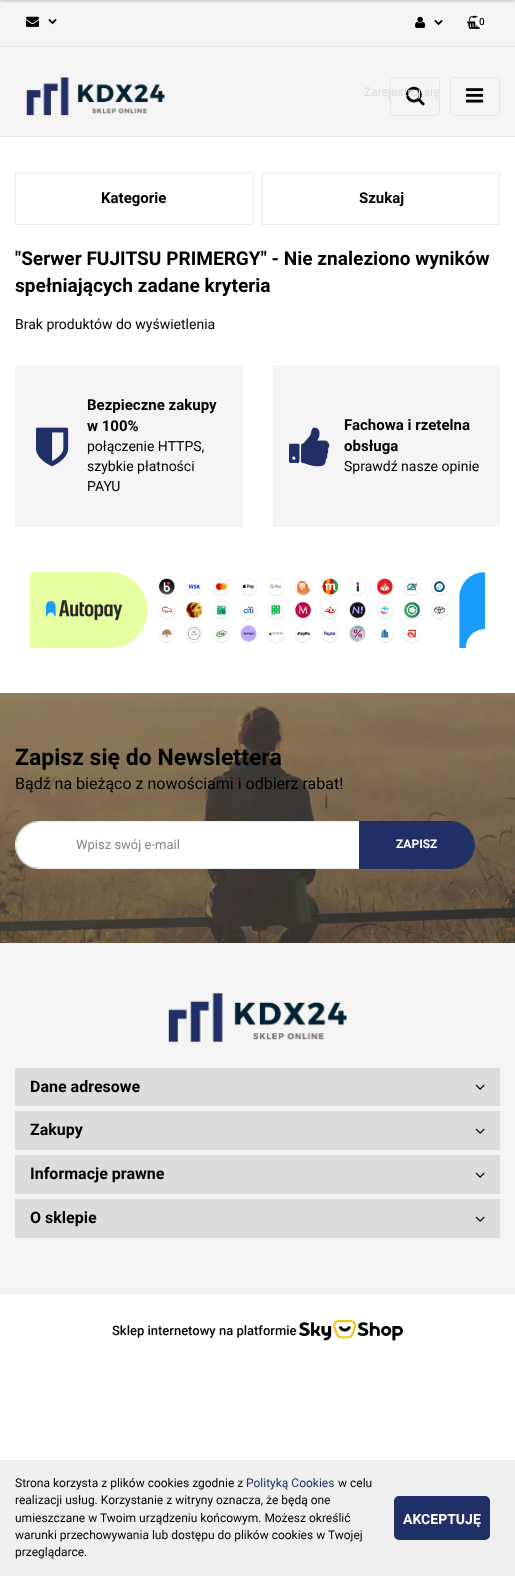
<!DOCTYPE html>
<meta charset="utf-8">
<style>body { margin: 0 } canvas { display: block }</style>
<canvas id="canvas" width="515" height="1576"></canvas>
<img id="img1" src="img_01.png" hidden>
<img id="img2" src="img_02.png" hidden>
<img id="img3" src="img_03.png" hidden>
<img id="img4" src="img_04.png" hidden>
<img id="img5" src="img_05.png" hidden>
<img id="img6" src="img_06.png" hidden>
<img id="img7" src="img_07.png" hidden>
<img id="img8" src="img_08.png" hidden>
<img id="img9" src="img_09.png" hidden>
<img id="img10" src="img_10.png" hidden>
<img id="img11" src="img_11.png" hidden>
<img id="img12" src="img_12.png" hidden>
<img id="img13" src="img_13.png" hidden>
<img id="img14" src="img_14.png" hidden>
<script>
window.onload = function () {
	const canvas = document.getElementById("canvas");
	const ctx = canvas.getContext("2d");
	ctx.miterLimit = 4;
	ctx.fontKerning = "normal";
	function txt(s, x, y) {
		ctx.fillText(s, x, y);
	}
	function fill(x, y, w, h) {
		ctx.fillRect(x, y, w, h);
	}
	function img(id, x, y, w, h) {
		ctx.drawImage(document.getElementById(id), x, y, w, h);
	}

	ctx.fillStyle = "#FFFFFF";
	fill(0, 0, 515, 1576);
	ctx.fillStyle = "#F4F4F4";
	fill(0, 0, 515, 136);
	ctx.fillStyle = "rgba(0, 0, 0, 0.2)";
	ctx.filter = "blur(1.5px)";
	ctx.beginPath();
	ctx.rect(0, -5, 515, 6);
	ctx.fill();
	ctx.filter = "none";
	ctx.fillStyle = "#E7E7E7";
	fill(0, 46, 515, 1);
	img("img1", 26, 16, 13, 11);
	img("img2", 48, 19, 9, 6);
	img("img3", 467, 15, 14, 14);
	ctx.fillStyle = "#FFFFFF";
	ctx.beginPath();
	ctx.arc(481.5, 21.5, 6, 0, Math.PI * 2);
	ctx.fill();
	ctx.strokeStyle = "#FFFFFF";
	ctx.stroke();
	img("img4", 415, 16, 11, 12);
	img("img2", 434, 20, 9, 6);
	img("img5", 26, 77, 139, 39);
	ctx.beginPath();
	ctx.roundRect(390.5, 77.5, 49, 38, 2.5);
	ctx.strokeStyle = "#E7E7E7";
	ctx.stroke();
	img("img6", 406, 86, 19, 20);
	ctx.beginPath();
	ctx.roundRect(450.5, 77.5, 49, 38, 2.5);
	ctx.stroke();
	img("img7", 466, 88, 18, 15);
	ctx.fillStyle = "#E7E7E7";
	fill(0, 136, 515, 1);
	ctx.strokeStyle = "#EBEBEB";
	ctx.strokeRect(15.5, 172.5, 237, 52);
	ctx.strokeRect(262.5, 172.5, 237, 52);
	ctx.fillStyle = "#F4F4F4";
	fill(15, 365, 228, 162);
	img("img8", 36, 427, 33, 40);
	fill(273, 365, 227, 162);
	img("img9", 289, 427, 41, 40);
	img("img10", 30, 572, 455, 76);
	img("img11", 0, 693, 515, 250);
	ctx.fillStyle = "#FFFFFF";
	ctx.beginPath();
	ctx.roundRect(16, 822, 343, 46, [23, 0, 0, 23]);
	ctx.fill();
	ctx.fillStyle = "#EBEBEB";
	ctx.beginPath();
	ctx.moveTo(39, 821);
	ctx.lineTo(359, 821);
	ctx.lineTo(359, 869);
	ctx.lineTo(39, 869);
	ctx.bezierCurveTo(26, 869, 15, 858, 15, 845);
	ctx.bezierCurveTo(15, 832, 26, 821, 39, 821);
	ctx.closePath();
	ctx.moveTo(39, 822);
	ctx.lineTo(359, 822);
	ctx.lineTo(359, 868);
	ctx.lineTo(39, 868);
	ctx.bezierCurveTo(26, 868, 16, 858, 16, 845);
	ctx.bezierCurveTo(16, 832, 26, 822, 39, 822);
	ctx.closePath();
	ctx.fill("evenodd");
	ctx.fillStyle = "#202F66";
	ctx.beginPath();
	ctx.roundRect(359, 822, 115, 46, [0, 23, 23, 0]);
	ctx.fill();
	ctx.beginPath();
	ctx.moveTo(359, 821);
	ctx.lineTo(451, 821);
	ctx.bezierCurveTo(464, 821, 475, 832, 475, 845);
	ctx.bezierCurveTo(475, 858, 464, 869, 451, 869);
	ctx.lineTo(359, 869);
	ctx.closePath();
	ctx.moveTo(359, 822);
	ctx.lineTo(451, 822);
	ctx.bezierCurveTo(464, 822, 474, 832, 474, 845);
	ctx.bezierCurveTo(474, 858, 464, 868, 451, 868);
	ctx.lineTo(359, 868);
	ctx.closePath();
	ctx.fill("evenodd");
	ctx.fillStyle = "#F4F4F4";
	fill(0, 943, 515, 350);
	img("img12", 168, 993, 179, 50);
	ctx.fillStyle = "#DCDCDC";
	fill(15, 1068, 485, 38);
	img("img13", 475, 1084, 10, 6);
	fill(15, 1111, 485, 39);
	img("img13", 475, 1128, 10, 6);
	fill(15, 1155, 485, 39);
	img("img13", 475, 1172, 10, 6);
	fill(15, 1199, 485, 39);
	img("img13", 475, 1216, 10, 6);
	ctx.fillStyle = "#EBEBEB";
	fill(0, 1293, 515, 1);
	img("img14", 299, 1320, 104, 21);
	ctx.fillStyle = "#EFEFEF";
	fill(0, 1460, 515, 116);
	ctx.fillStyle = "#202F66";
	ctx.beginPath();
	ctx.roundRect(395, 1497, 94, 42, 4);
	ctx.fill();
	ctx.strokeStyle = "#202F66";
	ctx.lineWidth = 2;
	ctx.stroke();
	ctx.font = "500 10px Roboto";
	ctx.fillStyle = "#000000";
	txt("0", 479, 25);
	ctx.font = "12px Roboto";
	ctx.fillStyle = "#DCDCDC";
	txt("Zarejestruj się", 364, 96);
	ctx.font = "bold 15px Roboto";
	ctx.fillStyle = "#000000";
	txt("Kategorie", 101, 203);
	txt("Szukaj", 359, 203);
	ctx.font = "bold 19.1px Roboto";
	txt("\"Serwer FUJITSU PRIMERGY\" - Nie znaleziono wyników", 15, 265);
	txt("spełniających zadane kryteria", 15, 292);
	ctx.font = "14px Roboto";
	txt("Brak produktów do wyświetlenia", 15, 329);
	ctx.font = "bold 15px Roboto";
	txt("Bezpieczne zakupy", 87, 410);
	txt("w 100%", 87, 431);
	ctx.font = "14px Roboto";
	txt("połączenie HTTPS,", 87, 451);
	txt("szybkie płatności", 87, 471);
	txt("PAYU", 87, 491);
	ctx.font = "bold 15px Roboto";
	txt("Fachowa i rzetelna", 344, 430);
	txt("obsługa", 344, 451);
	ctx.font = "14px Roboto";
	txt("Sprawdź nasze opinie", 344, 471);
	ctx.font = "bold 23px Roboto";
	txt("Zapisz się do Newslettera", 15, 765);
	ctx.font = "16px Roboto";
	txt("Bądź na bieżąco z nowościami i odbierz rabat!", 15, 789);
	ctx.font = "13px Roboto";
	ctx.fillStyle = "#858585";
	txt("Wpisz swój e-mail", 76, 849);
	ctx.font = "bold 12px Roboto";
	ctx.fillStyle = "#FFFFFF";
	txt("ZAPISZ", 396, 848);
	ctx.font = "bold 16px Roboto";
	ctx.fillStyle = "#000000";
	txt("Dane adresowe", 30, 1092);
	txt("Zakupy", 30, 1135);
	txt("Informacje prawne", 30, 1179);
	txt("O sklepie", 30, 1223);
	ctx.font = "500 13px Roboto";
	txt("Sklep internetowy na platformie", 112, 1335);
	ctx.font = "12px Roboto";
	txt("Strona korzysta z plików cookies zgodnie z", 15, 1487);
	ctx.fillStyle = "#202F66";
	txt("Polityką Cookies", 246, 1487);
	ctx.fillStyle = "#000000";
	txt("w celu", 338, 1487);
	txt("realizacji usług. Korzystanie z witryny oznacza, że będą one", 15, 1504);
	txt("umieszczane w Twoim urządzeniu końcowym. Możesz określić", 15, 1522);
	txt("warunki przechowywania lub dostępu do plików cookies w Twojej", 15, 1539);
	txt("przeglądarce.", 15, 1556);
	ctx.font = "bold 14px Roboto";
	ctx.fillStyle = "#FFFFFF";
	txt("AKCEPTUJĘ", 403, 1524);
};
</script>
